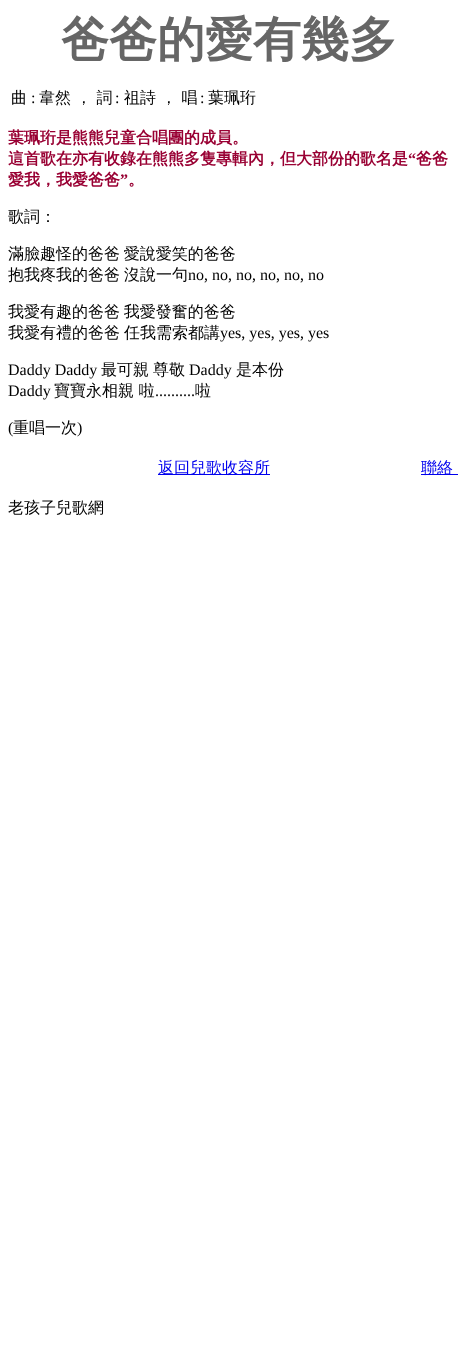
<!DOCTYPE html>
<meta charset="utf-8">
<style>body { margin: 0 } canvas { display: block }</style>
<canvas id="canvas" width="458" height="1361"></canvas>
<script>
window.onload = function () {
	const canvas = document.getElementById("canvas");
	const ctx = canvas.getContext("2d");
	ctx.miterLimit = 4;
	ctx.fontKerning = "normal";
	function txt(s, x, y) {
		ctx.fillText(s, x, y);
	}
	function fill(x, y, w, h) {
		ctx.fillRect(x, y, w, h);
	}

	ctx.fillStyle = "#FFFFFF";
	fill(0, 0, 458, 1361);
	ctx.fillStyle = "#0000EE";
	fill(158, 474, 112, 1);
	fill(421, 474, 37, 1);
	ctx.font = "bold 48px WenQuanYi Zen Hei";
	ctx.fillStyle = "#666666";
	txt("爸爸的愛有幾多", 61, 56);
	ctx.font = "500 16px WenQuanYi Zen Hei";
	ctx.fillStyle = "#000000";
	txt("曲", 11, 103);
	ctx.font = "16px Liberation Serif";
	txt(":", 31, 103);
	ctx.font = "500 16px WenQuanYi Zen Hei";
	txt("韋然 ， 詞", 39, 103);
	ctx.font = "16px Liberation Serif";
	txt(":", 115, 103);
	ctx.font = "500 16px WenQuanYi Zen Hei";
	txt("祖詩 ， 唱", 124, 103);
	ctx.font = "16px Liberation Serif";
	txt(":", 200, 103);
	ctx.font = "500 16px WenQuanYi Zen Hei";
	txt("葉珮珩", 208, 103);
	ctx.font = "bold 16px WenQuanYi Zen Hei";
	ctx.fillStyle = "#990033";
	txt("葉珮珩是熊熊兒童合唱團的成員。", 8, 143);
	txt("這首歌在亦有收錄在熊熊多隻專輯內，但大部份的歌名是", 8, 164);
	ctx.font = "bold 16px Liberation Serif";
	txt("“", 408, 164);
	ctx.font = "bold 16px WenQuanYi Zen Hei";
	txt("爸爸", 416, 164);
	txt("愛我，我愛爸爸", 8, 185);
	ctx.font = "bold 16px Liberation Serif";
	txt("”", 120, 185);
	ctx.font = "bold 16px WenQuanYi Zen Hei";
	txt("。", 128, 185);
	ctx.font = "500 16px WenQuanYi Zen Hei";
	ctx.fillStyle = "#000000";
	txt("歌詞：", 8, 222);
	ctx.wordSpacing = "-1px";
	txt("滿臉趣怪的爸爸 愛說愛笑的爸爸", 8, 259);
	ctx.wordSpacing = "0px";
	txt("抱我疼我的爸爸", 8, 280);
	txt("沒說一句", 124, 280);
	ctx.font = "16px Liberation Serif";
	txt("no, no, no, no, no, no", 188, 280);
	ctx.wordSpacing = "-1px";
	ctx.font = "500 16px WenQuanYi Zen Hei";
	txt("我愛有趣的爸爸 我愛發奮的爸爸", 8, 317);
	ctx.wordSpacing = "0px";
	txt("我愛有禮的爸爸", 8, 338);
	txt("任我需索都講", 124, 338);
	ctx.font = "16px Liberation Serif";
	txt("yes, yes, yes, yes", 220, 338);
	txt("Daddy Daddy", 8, 375);
	ctx.font = "500 16px WenQuanYi Zen Hei";
	txt("最可親", 101, 375);
	txt("尊敬", 153, 375);
	ctx.font = "16px Liberation Serif";
	txt("Daddy", 189, 375);
	ctx.font = "500 16px WenQuanYi Zen Hei";
	txt("是本份", 236, 375);
	ctx.font = "16px Liberation Serif";
	txt("Daddy", 8, 396);
	ctx.font = "500 16px WenQuanYi Zen Hei";
	txt("寶寶永相親 啦", 54, 396);
	ctx.font = "16px Liberation Serif";
	txt("..........", 155, 396);
	ctx.font = "500 16px WenQuanYi Zen Hei";
	txt("啦", 195, 396);
	ctx.font = "16px Liberation Serif";
	txt("(", 8, 433);
	ctx.font = "500 16px WenQuanYi Zen Hei";
	txt("重唱一次", 13, 433);
	ctx.font = "16px Liberation Serif";
	txt(")", 77, 433);
	ctx.font = "500 16px WenQuanYi Zen Hei";
	ctx.fillStyle = "#0000EE";
	txt("返回兒歌收容所", 158, 473);
	txt("聯絡", 421, 473);
	ctx.fillStyle = "#000000";
	txt("老孩子兒歌網", 8, 513);
};
</script>
